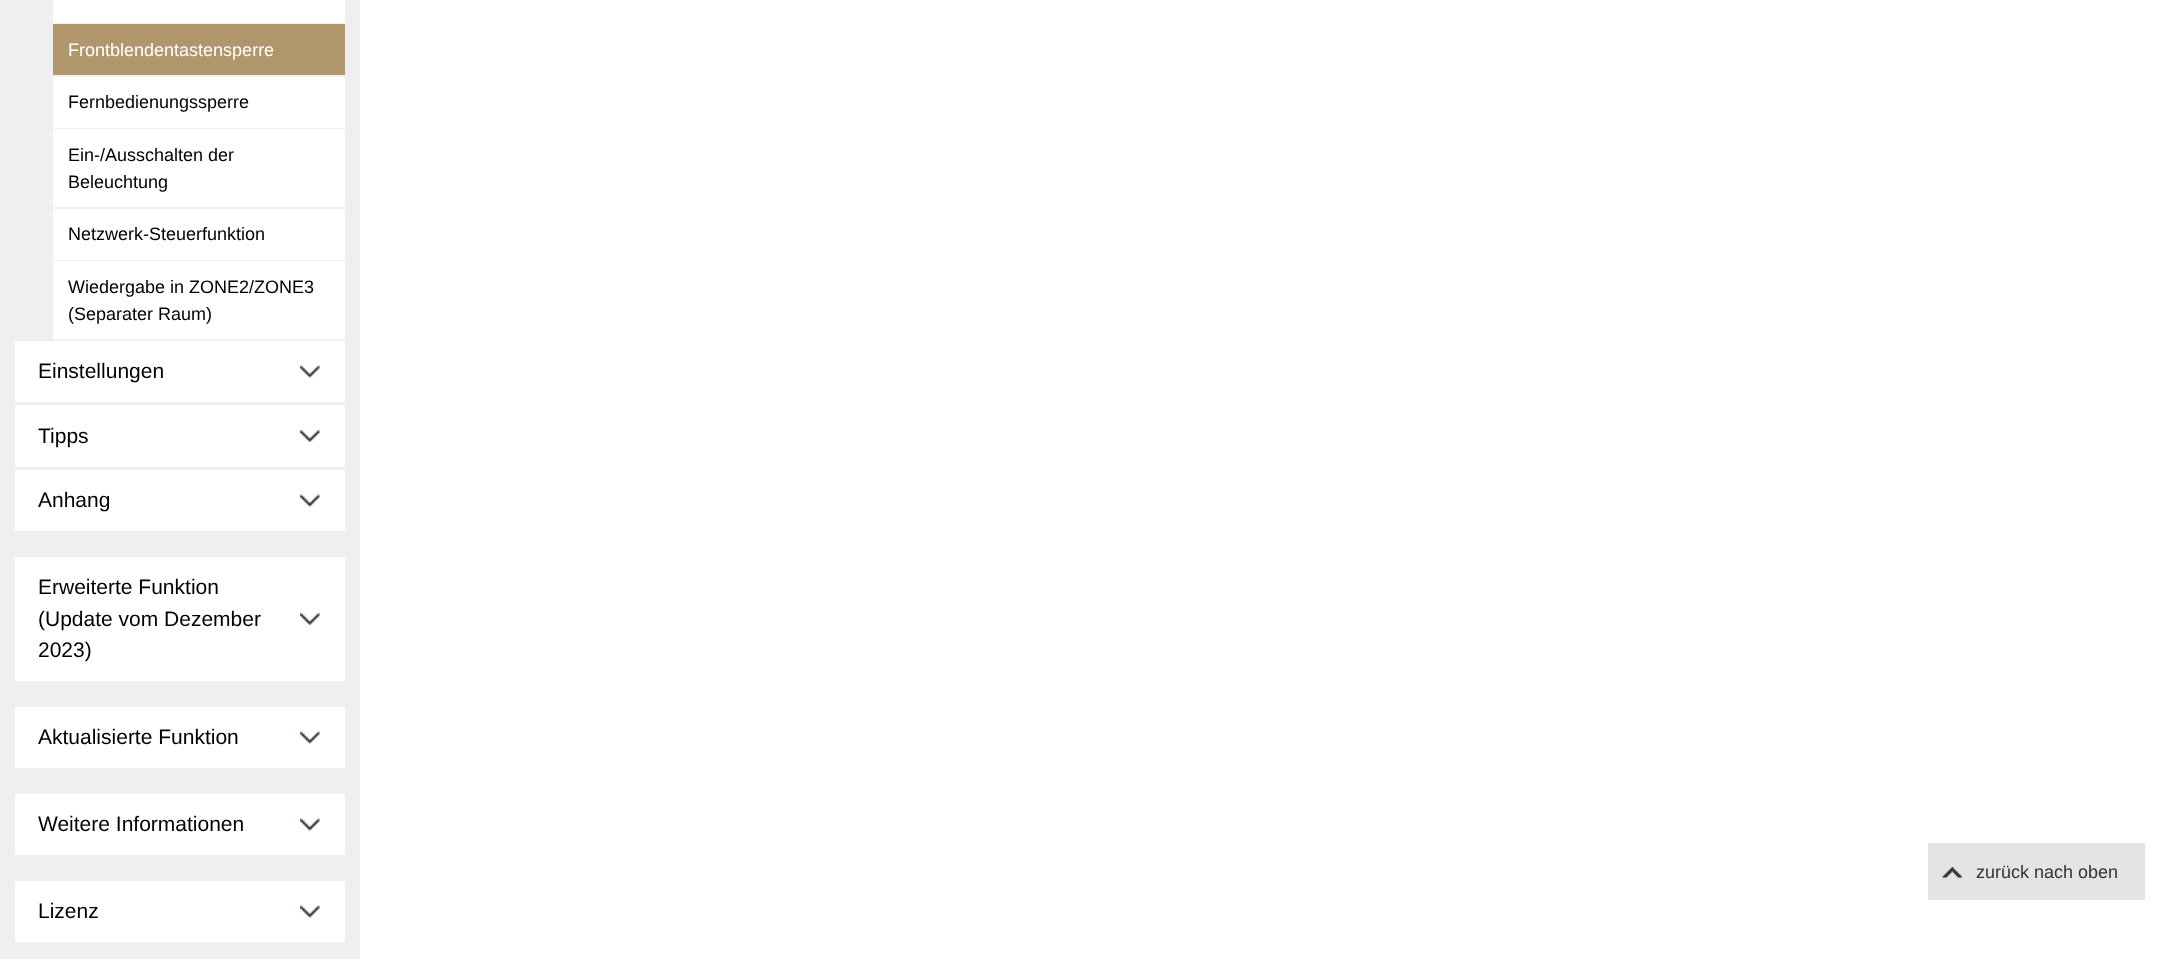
<!DOCTYPE html>
<meta charset="utf-8">
<style>body { margin: 0 } canvas { display: block }</style>
<canvas id="canvas" width="2160" height="959"></canvas>
<img id="img1" src="img_01.png" hidden>
<img id="img2" src="img_02.png" hidden>
<img id="img3" src="img_03.png" hidden>
<script>
window.onload = function () {
	const canvas = document.getElementById("canvas");
	const ctx = canvas.getContext("2d");
	ctx.miterLimit = 4;
	ctx.fontKerning = "normal";
	function txt(s, x, y) {
		ctx.fillText(s, x, y);
	}
	function fill(x, y, w, h) {
		ctx.fillRect(x, y, w, h);
	}
	function img(id, x, y, w, h) {
		ctx.drawImage(document.getElementById(id), x, y, w, h);
	}

	ctx.fillStyle = "#FFFFFF";
	fill(0, 0, 2160, 959);
	ctx.fillStyle = "#EFEFEE";
	fill(0, 0, 360, 959);
	ctx.fillStyle = "#FFFFFF";
	fill(53, 0, 292, 23);
	ctx.fillStyle = "#AF976B";
	fill(53, 24, 292, 51);
	ctx.fillStyle = "#FFFFFF";
	fill(53, 77, 292, 51);
	fill(53, 129, 292, 78);
	fill(53, 209, 292, 51);
	fill(53, 261, 292, 78);
	fill(15, 341, 330, 61);
	img("img1", 300, 365, 20, 13);
	fill(15, 405, 330, 62);
	img("img2", 300, 430, 20, 12);
	fill(15, 470, 330, 61);
	img("img1", 300, 494, 20, 13);
	fill(15, 557, 330, 124);
	img("img2", 300, 613, 20, 12);
	fill(15, 707, 330, 61);
	img("img1", 300, 731, 20, 13);
	fill(15, 794, 330, 61);
	img("img1", 300, 818, 20, 13);
	fill(15, 881, 330, 61);
	img("img1", 300, 905, 20, 13);
	ctx.fillStyle = "#E4E4E4";
	fill(1928, 843, 217, 57);
	img("img3", 1942, 867, 20, 11);
	ctx.font = "18px Liberation Sans";
	ctx.fillStyle = "#FFFFFF";
	txt("Frontblendentastensperre", 68, 56);
	ctx.fillStyle = "#000000";
	txt("Fernbedienungssperre", 68, 108);
	txt("Ein-/Ausschalten der", 68, 161);
	txt("Beleuchtung", 68, 188);
	txt("Netzwerk-Steuerfunktion", 68, 240);
	txt("Wiedergabe in ZONE2/ZONE3", 68, 293);
	txt("(Separater Raum)", 68, 320);
	ctx.font = "21px Liberation Sans";
	txt("Einstellungen", 38, 378);
	txt("Tipps", 38, 443);
	txt("Anhang", 38, 507);
	txt("Erweiterte Funktion", 38, 594);
	txt("(Update vom Dezember", 38, 626);
	txt("2023)", 38, 657);
	txt("Aktualisierte Funktion", 38, 744);
	txt("Weitere Informationen", 38, 831);
	txt("Lizenz", 38, 918);
	ctx.font = "18px Liberation Sans";
	ctx.fillStyle = "#333333";
	txt("zurück nach oben", 1976, 878);
};
</script>
